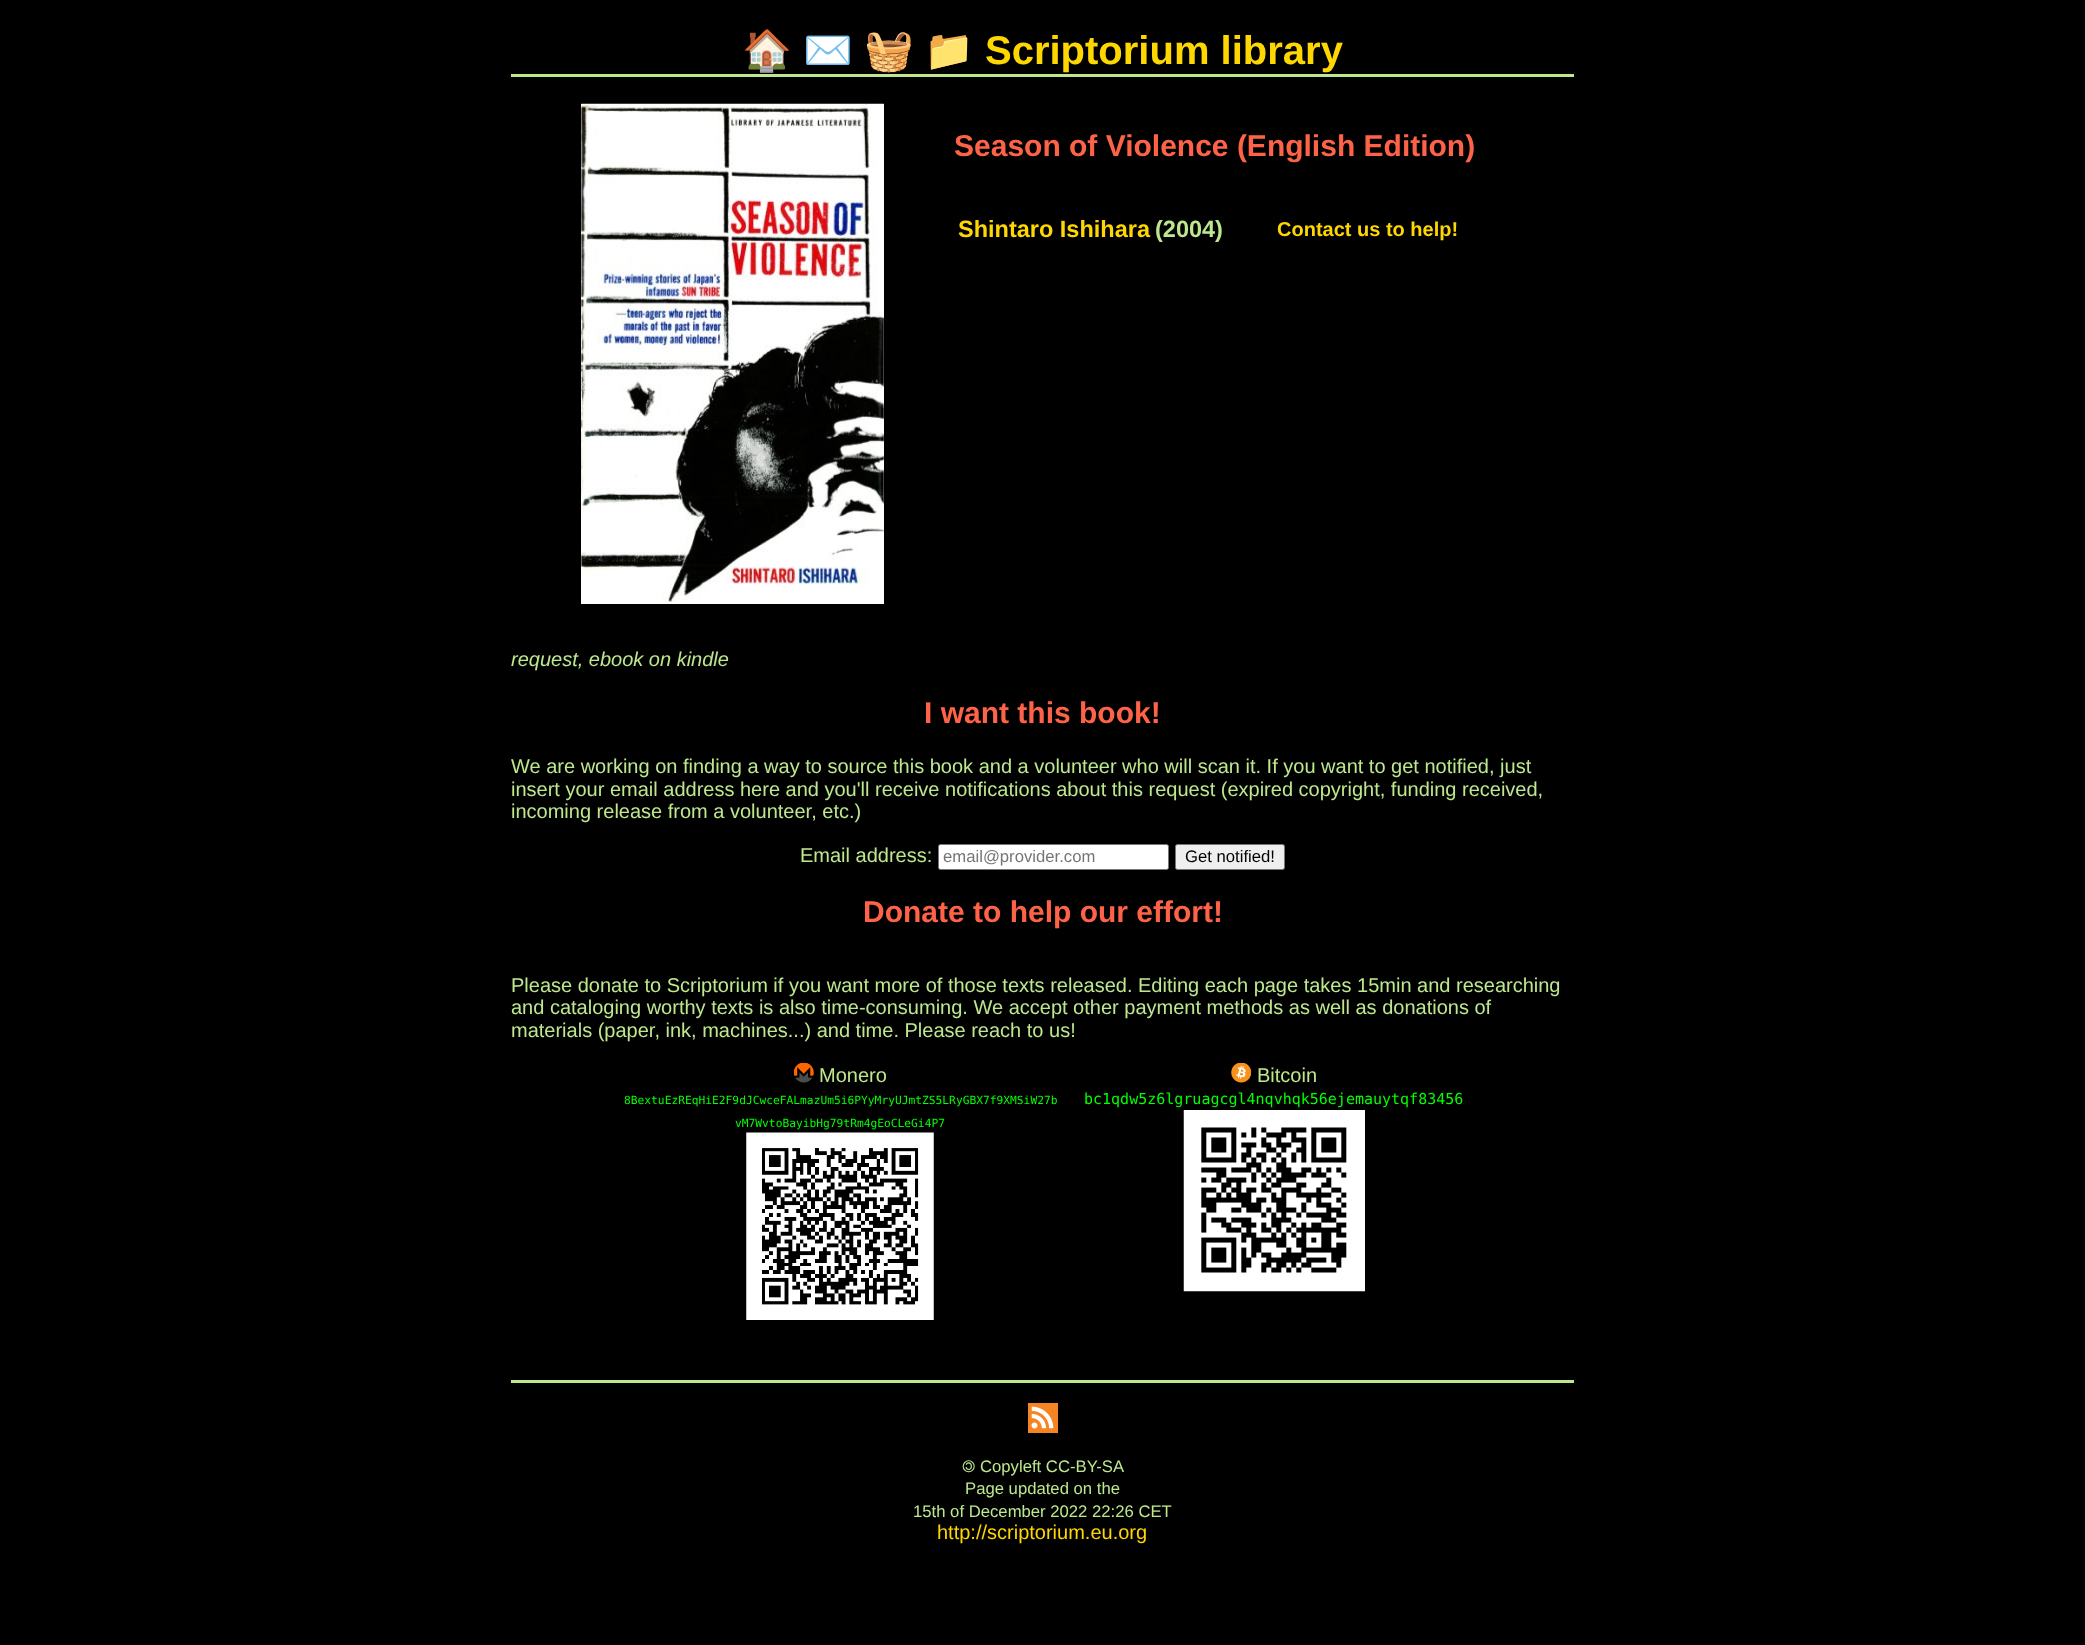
<!DOCTYPE html>
<meta charset="utf-8">
<style>body { margin: 0 } canvas { display: block }</style>
<canvas id="canvas" width="2085" height="1645"></canvas>
<img id="img1" src="img_01.png" hidden>
<img id="img2" src="img_02.png" hidden>
<img id="img3" src="img_03.png" hidden>
<img id="img4" src="img_04.png" hidden>
<img id="img5" src="img_05.png" hidden>
<img id="img6" src="img_06.png" hidden>
<script>
window.onload = function () {
	const canvas = document.getElementById("canvas");
	const ctx = canvas.getContext("2d");
	ctx.miterLimit = 4;
	ctx.fontKerning = "normal";
	function txt(s, x, y) {
		ctx.fillText(s, x, y);
	}
	function fill(x, y, w, h) {
		ctx.fillRect(x, y, w, h);
	}
	function img(id, x, y, w, h) {
		ctx.drawImage(document.getElementById(id), x, y, w, h);
	}

	ctx.fillStyle = "#000000";
	fill(0, 0, 2085, 1645);
	ctx.fillStyle = "#BDE88D";
	fill(511, 74, 1063, 3);
	ctx.fillStyle = "#FFFFFF";
	fill(581, 104, 303, 500);
	img("img1", 581, 103, 303, 500);
	ctx.beginPath();
	ctx.roundRect(938.5, 844.5, 230, 25, 2);
	ctx.fill();
	ctx.strokeStyle = "#767676";
	ctx.stroke();
	ctx.fillStyle = "#EFEFEF";
	ctx.beginPath();
	ctx.roundRect(1175.5, 844.5, 109, 25, 2);
	ctx.fill();
	ctx.stroke();
	img("img2", 794, 1063, 20, 20);
	img("img3", 746, 1132, 188, 188);
	img("img4", 1231, 1063, 20, 20);
	img("img5", 1183, 1110, 182, 182);
	ctx.fillStyle = "#BDE88D";
	fill(511, 1380, 1063, 3);
	img("img6", 1028, 1403, 30, 30);
	ctx.font = "bold 40px Noto Color Emoji";
	ctx.fillStyle = "#FFD700";
	txt("🏠", 742, 64);
	txt("✉️", 803, 64);
	txt("🧺", 864, 64);
	txt("📁", 924, 64);
	ctx.font = "bold 40px Liberation Sans";
	txt("Scriptorium library", 985, 64);
	ctx.font = "bold 30px Liberation Sans";
	ctx.fillStyle = "#FF6347";
	txt("Season of Violence (English Edition)", 954, 156);
	ctx.font = "bold 23.5px Liberation Sans";
	ctx.fillStyle = "#FFD700";
	txt("Shintaro Ishihara", 958, 237);
	ctx.fillStyle = "#BDE88D";
	txt("(2004)", 1155, 237);
	ctx.font = "bold 20px Liberation Sans";
	ctx.fillStyle = "#FFD700";
	txt("Contact us to help!", 1277, 236);
	ctx.font = "italic 20px Liberation Sans";
	ctx.fillStyle = "#BDE88D";
	txt("request, ebook on kindle", 511, 666);
	ctx.font = "bold 30px Liberation Sans";
	ctx.fillStyle = "#FF6347";
	txt("I want this book!", 924, 723);
	ctx.font = "20px Liberation Sans";
	ctx.fillStyle = "#BDE88D";
	txt("We are working on finding a way to source this book and a volunteer who will scan it. If you want to get notified, just", 511, 773);
	txt("insert your email address here and you'll receive notifications about this request (expired copyright, funding received,", 511, 796);
	txt("incoming release from a volunteer, etc.)", 511, 818);
	txt("Email address:", 800, 862);
	ctx.font = "16.7px Liberation Sans";
	ctx.fillStyle = "#757575";
	txt("email@provider.com", 943, 862);
	ctx.fillStyle = "#000000";
	txt("Get notified!", 1185, 862);
	ctx.font = "bold 30px Liberation Sans";
	ctx.fillStyle = "#FF6347";
	txt("Donate to help our effort!", 863, 922);
	ctx.font = "20px Liberation Sans";
	ctx.fillStyle = "#BDE88D";
	txt("Please donate to Scriptorium if you want more of those texts released. Editing each page takes 15min and researching", 511, 992);
	txt("and cataloging worthy texts is also time-consuming. We accept other payment methods as well as donations of", 511, 1014);
	txt("materials (paper, ink, machines...) and time. Please reach to us!", 511, 1037);
	txt("Monero", 819, 1082);
	ctx.font = "11.25px DejaVu Sans Mono";
	ctx.fillStyle = "#00FF00";
	txt("8BextuEzREqHiE2F9dJCwceFALmazUm5i6PYyMryUJmtZS5LRyGBX7f9XMSiW27b", 624, 1104);
	txt("vM7WvtoBayibHg79tRm4gEoCLeGi4P7", 735, 1127);
	ctx.font = "20px Liberation Sans";
	ctx.fillStyle = "#BDE88D";
	txt("Bitcoin", 1257, 1082);
	ctx.font = "15px DejaVu Sans Mono";
	ctx.fillStyle = "#00FF00";
	txt("bc1qdw5z6lgruagcgl4nqvhqk56ejemauytqf83456", 1084, 1104);
	ctx.font = "16.7px FreeSans";
	ctx.fillStyle = "#BDE88D";
	txt("🄯", 962, 1472);
	ctx.font = "16.7px Liberation Sans";
	txt("Copyleft CC-BY-SA", 980, 1472);
	txt("Page updated on the", 965, 1494);
	txt("15th of December 2022 22:26 CET", 913, 1517);
	ctx.font = "20px Liberation Sans";
	ctx.fillStyle = "#FFD700";
	txt("http://scriptorium.eu.org", 937, 1539);
};
</script>
